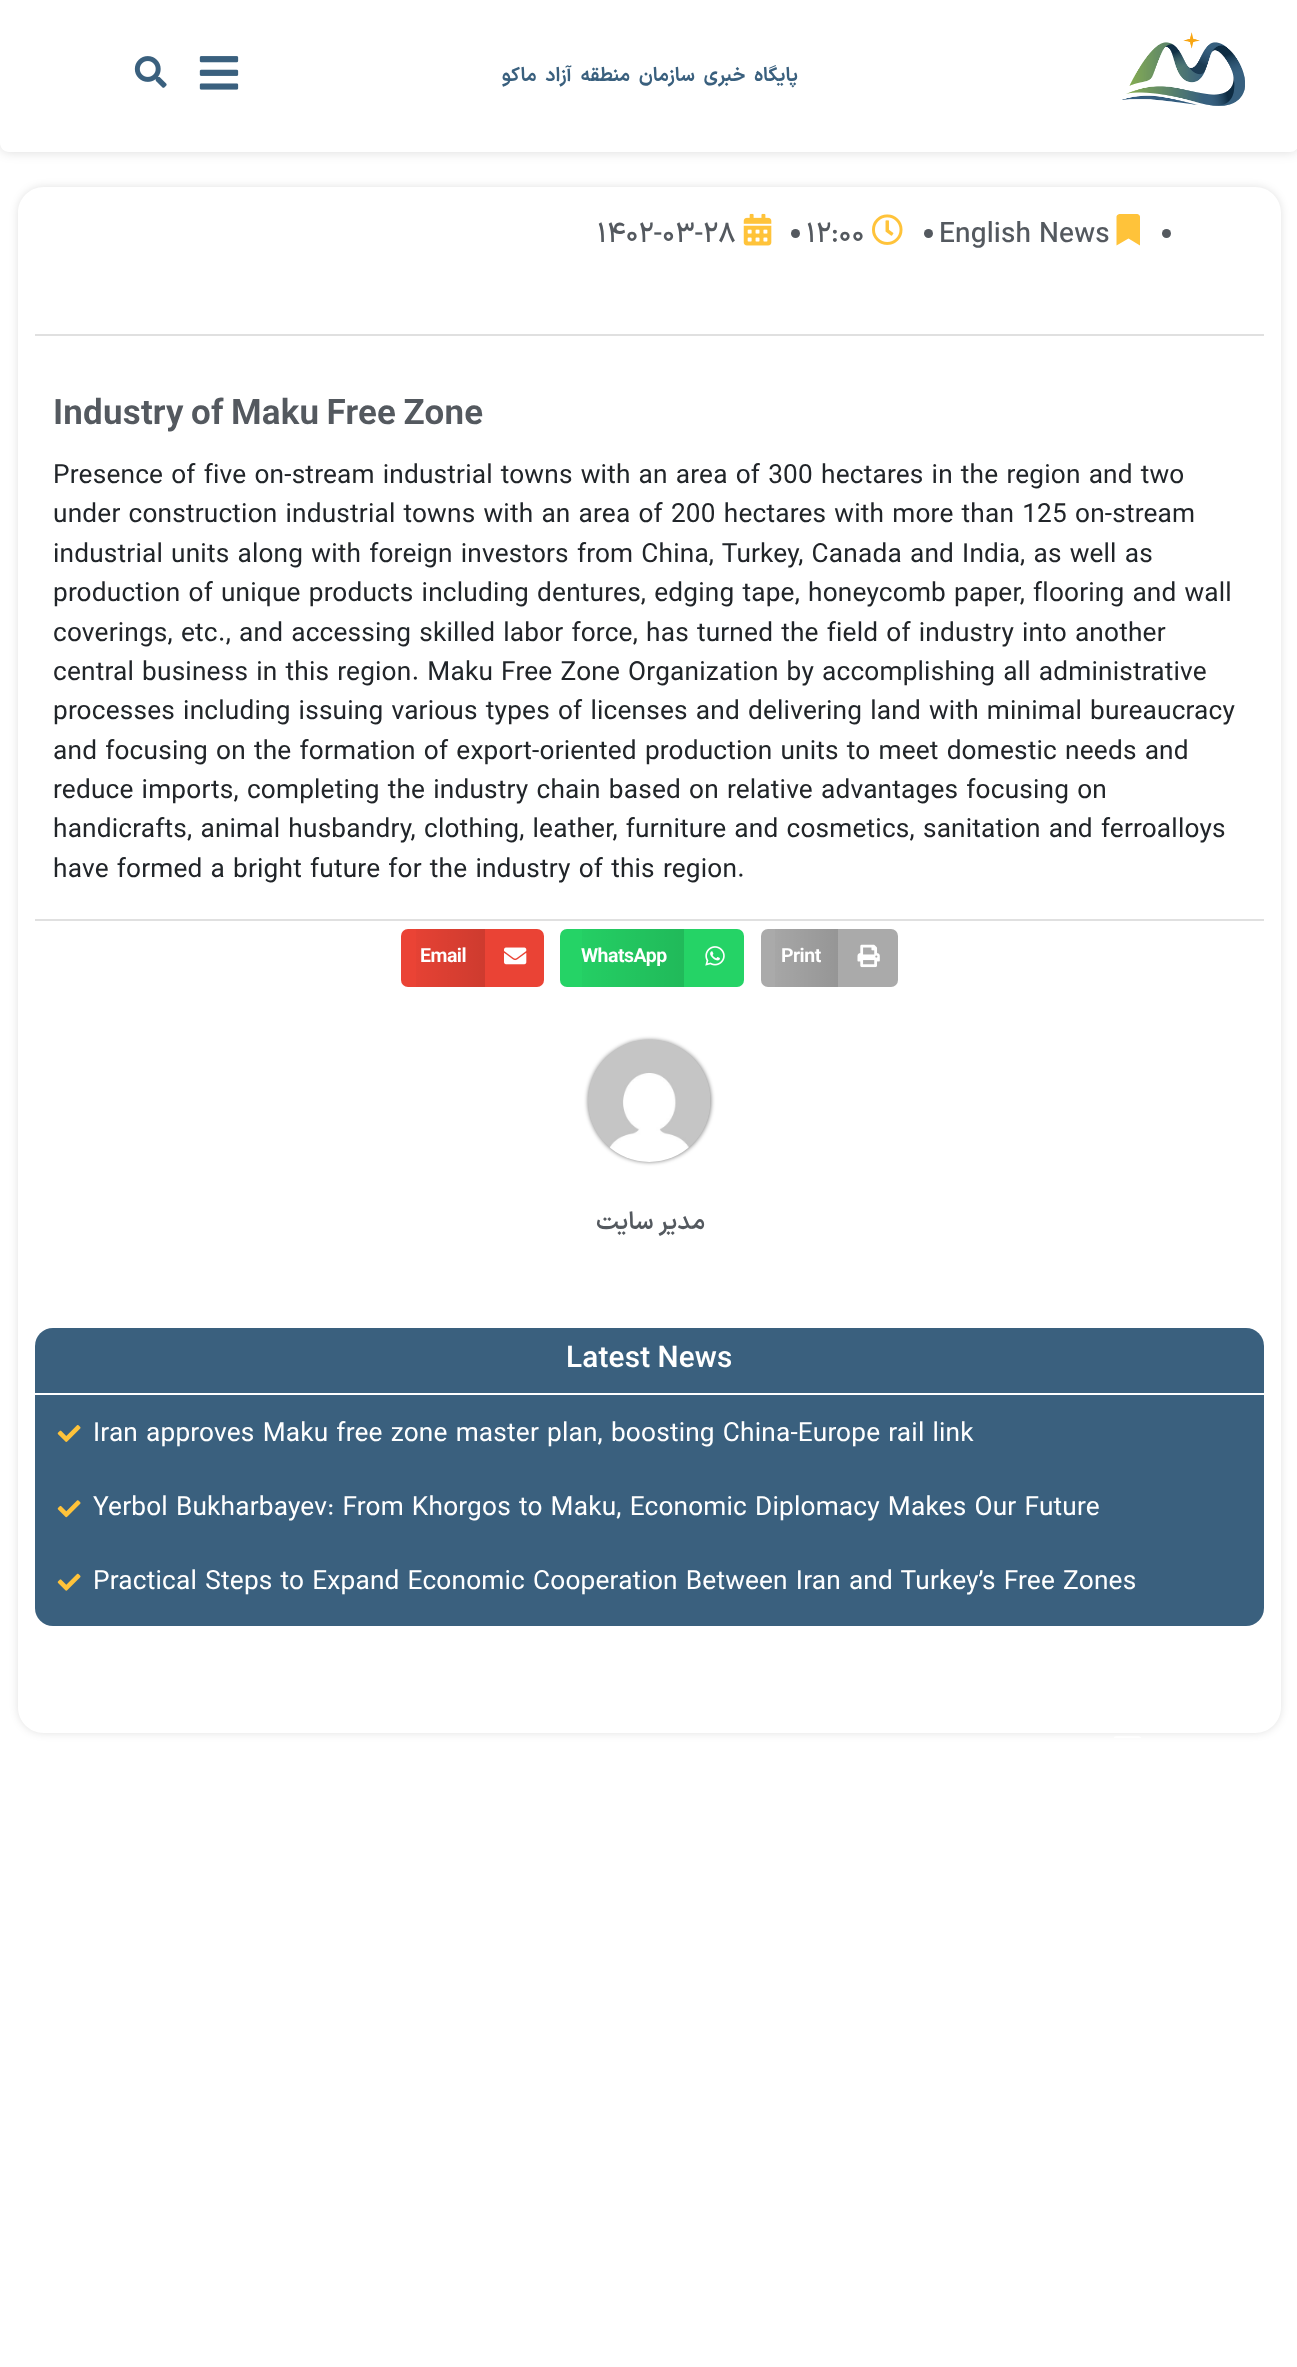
<!DOCTYPE html>
<meta charset="utf-8">
<style>body { margin: 0 } canvas { display: block }</style>
<canvas id="canvas" width="1297" height="2367"></canvas>
<img id="img1" src="img_01.png" hidden>
<img id="img2" src="img_02.png" hidden>
<img id="img3" src="img_03.png" hidden>
<img id="img4" src="img_04.png" hidden>
<img id="img5" src="img_05.png" hidden>
<img id="img6" src="img_06.png" hidden>
<img id="img7" src="img_07.png" hidden>
<img id="img8" src="img_08.png" hidden>
<img id="img9" src="img_09.png" hidden>
<img id="img10" src="img_10.png" hidden>
<img id="img11" src="img_11.png" hidden>
<img id="img12" src="img_12.png" hidden>
<img id="img13" src="img_13.png" hidden>
<script>
window.onload = function () {
	const canvas = document.getElementById("canvas");
	const ctx = canvas.getContext("2d");
	ctx.miterLimit = 4;
	ctx.fontKerning = "normal";
	function txt(s, x, y) {
		ctx.fillText(s, x, y);
	}
	function fill(x, y, w, h) {
		ctx.fillRect(x, y, w, h);
	}
	function round(x, y, w, h, r) {
		ctx.beginPath();
		ctx.roundRect(x, y, w, h, r);
		ctx.fill();
	}
	function img(id, x, y, w, h) {
		ctx.drawImage(document.getElementById(id), x, y, w, h);
	}
	let gradient;

	ctx.fillStyle = "#FFFFFF";
	fill(0, 0, 1297, 2367);
	ctx.fillStyle = "rgba(0, 0, 0, 0.14)";
	ctx.filter = "blur(6px)";
	ctx.beginPath();
	ctx.roundRect(0, 0, 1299, 152, 9);
	ctx.fill();
	ctx.filter = "none";
	ctx.fillStyle = "#FFFFFF";
	ctx.beginPath();
	ctx.moveTo(0, 0);
	ctx.lineTo(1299, 0);
	ctx.lineTo(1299, 143);
	ctx.bezierCurveTo(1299, 148, 1295, 152, 1290, 152);
	ctx.lineTo(9, 152);
	ctx.bezierCurveTo(4, 152, 0, 148, 0, 143);
	ctx.closePath();
	ctx.fill();
	img("img1", 134, 56, 33, 32);
	img("img2", 199, 56, 40, 34);
	img("img3", 1122, 32, 123, 74);
	ctx.save();
	ctx.beginPath();
	ctx.moveTo(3, 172);
	ctx.lineTo(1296, 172);
	ctx.lineTo(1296, 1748);
	ctx.lineTo(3, 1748);
	ctx.closePath();
	ctx.moveTo(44, 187);
	ctx.lineTo(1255, 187);
	ctx.bezierCurveTo(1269.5, 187, 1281, 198.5, 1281, 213);
	ctx.lineTo(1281, 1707);
	ctx.bezierCurveTo(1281, 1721.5, 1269.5, 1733, 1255, 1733);
	ctx.lineTo(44, 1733);
	ctx.bezierCurveTo(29.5, 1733, 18, 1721.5, 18, 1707);
	ctx.lineTo(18, 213);
	ctx.bezierCurveTo(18, 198.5, 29.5, 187, 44, 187);
	ctx.closePath();
	ctx.clip("evenodd");
	ctx.fillStyle = "rgba(0, 0, 0, 0.12)";
	ctx.filter = "blur(4.5px)";
	ctx.beginPath();
	ctx.roundRect(18, 187, 1263, 1546, 26);
	ctx.fill();
	ctx.filter = "none";
	ctx.restore();
	ctx.fillStyle = "#E0E0E0";
	fill(35, 334, 1229, 2);
	img("img4", 743, 213, 29, 33);
	ctx.fillStyle = "#54595F";
	ctx.beginPath();
	ctx.arc(795.5, 233.5, 4.5, 0, Math.PI * 2);
	ctx.fill();
	img("img5", 872, 214, 31, 31);
	ctx.beginPath();
	ctx.arc(928.5, 233.5, 4.5, 0, Math.PI * 2);
	ctx.fill();
	ctx.fillStyle = "#FFC33A";
	ctx.beginPath();
	ctx.moveTo(1116.5, 245.5);
	ctx.lineTo(1116.5, 216.5);
	ctx.bezierCurveTo(1117, 213.5, 1120.5, 214, 1122.5, 214);
	ctx.lineTo(1134, 214);
	ctx.bezierCurveTo(1136.5, 214, 1139.5, 213.5, 1140, 216.5);
	ctx.lineTo(1140, 245.5);
	ctx.lineTo(1128.5, 238.5);
	ctx.closePath();
	ctx.fill();
	ctx.fillStyle = "#54595F";
	ctx.beginPath();
	ctx.arc(1166.5, 233.5, 4.5, 0, Math.PI * 2);
	ctx.fill();
	ctx.fillStyle = "#E0E0E0";
	fill(35, 919, 1229, 2);
	ctx.fillStyle = "#EA4335";
	round(401, 929, 143, 58, 7);
	gradient = ctx.createLinearGradient(485, 958, 401, 958);
	gradient.addColorStop(0, "rgba(0, 0, 0, 0.12)");
	gradient.addColorStop(1, "rgba(0, 0, 0, 0)");
	ctx.fillStyle = gradient;
	fill(416, 929, 69, 58);
	img("img6", 504, 947, 23, 18);
	ctx.fillStyle = "#25D366";
	round(560, 929, 184, 58, 7);
	gradient = ctx.createLinearGradient(684, 958, 560, 958);
	gradient.addColorStop(0, "rgba(0, 0, 0, 0.12)");
	gradient.addColorStop(1, "rgba(0, 0, 0, 0)");
	ctx.fillStyle = gradient;
	fill(582, 929, 102, 58);
	img("img7", 705, 946, 20, 20);
	ctx.fillStyle = "#AAAAAA";
	round(761, 929, 137, 58, 7);
	gradient = ctx.createLinearGradient(838, 958, 761, 958);
	gradient.addColorStop(0, "rgba(0, 0, 0, 0.12)");
	gradient.addColorStop(1, "rgba(0, 0, 0, 0)");
	ctx.fillStyle = gradient;
	fill(775, 929, 63, 58);
	img("img8", 857, 944, 23, 24);
	ctx.fillStyle = "rgba(0, 0, 0, 0.5)";
	ctx.filter = "blur(2px)";
	ctx.beginPath();
	ctx.roundRect(588, 1040, 123, 122, 61);
	ctx.fill();
	ctx.filter = "none";
	img("img9", 588, 1039, 123, 123);
	ctx.fillStyle = "#3A607E";
	ctx.beginPath();
	ctx.roundRect(35, 1328, 1229, 67, [18, 18, 0, 0]);
	ctx.fill();
	ctx.fillStyle = "#FFFFFF";
	fill(35, 1393, 1229, 2);
	ctx.fillStyle = "#3A607E";
	ctx.beginPath();
	ctx.roundRect(35, 1395, 1229, 231, [0, 0, 18, 18]);
	ctx.fill();
	img("img10", 57, 1425, 24, 17);
	img("img11", 57, 1500, 24, 18);
	img("img12", 57, 1573, 24, 18);
	img("img13", 1114, 1736, 27, 2);
	ctx.letterSpacing = "-0.8px";
	ctx.wordSpacing = "5.5px";
	ctx.direction = "rtl";
	ctx.font = "bold 19.25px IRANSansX";
	txt("پایگاه خبری سازمان منطقه آزاد ماکو", 798, 81);
	ctx.letterSpacing = "0.18px";
	ctx.wordSpacing = "0px";
	ctx.direction = "ltr";
	ctx.font = "500 28px IRANSansX";
	ctx.fillStyle = "#54595F";
	txt("۱۴۰۲-۰۳-۲۸", 597, 242);
	txt("۱۲:۰۰", 806, 242);
	txt("English News", 939, 242);
	ctx.font = "bold 35px IRANSansX";
	txt("Industry of Maku Free Zone", 53, 424);
	ctx.font = "26.25px IRANSansX";
	ctx.fillStyle = "#212529";
	txt("Presence of five on-stream industrial towns with an area of 300 hectares in the region and two", 53, 483);
	txt("under construction industrial towns with an area of 200 hectares with more than 125 on-stream", 53, 522);
	txt("industrial units along with foreign investors from China, Turkey, Canada and India, as well as", 53, 562);
	txt("production of unique products including dentures, edging tape, honeycomb paper, flooring and wall", 53, 601);
	txt("coverings, etc., and accessing skilled labor force, has turned the field of industry into another", 53, 641);
	txt("central business in this region. Maku Free Zone Organization by accomplishing all administrative", 53, 680);
	txt("processes including issuing various types of licenses and delivering land with minimal bureaucracy", 53, 719);
	txt("and focusing on the formation of export-oriented production units to meet domestic needs and", 53, 759);
	txt("reduce imports, completing the industry chain based on relative advantages focusing on", 53, 798);
	txt("handicrafts, animal husbandry, clothing, leather, furniture and cosmetics, sanitation and ferroalloys", 53, 837);
	txt("have formed a bright future for the industry of this region.", 53, 877);
	ctx.letterSpacing = "-0.5px";
	ctx.font = "bold 19.5px IRANSansX";
	ctx.fillStyle = "#FFFFFF";
	txt("Email", 420, 962);
	txt("WhatsApp", 581, 962);
	txt("Print", 781, 962);
	ctx.letterSpacing = "0.18px";
	ctx.wordSpacing = "-1px";
	ctx.direction = "rtl";
	ctx.font = "600 24.5px IRANSansX";
	ctx.fillStyle = "#54595F";
	txt("مدیر سایت", 705, 1229);
	ctx.wordSpacing = "0px";
	ctx.direction = "ltr";
	ctx.font = "600 29.75px IRANSansX";
	ctx.fillStyle = "#FFFFFF";
	txt("Latest News", 566, 1367);
	ctx.font = "26.25px IRANSansX";
	txt("Iran approves Maku free zone master plan, boosting China-Europe rail link", 93, 1441);
	txt("Yerbol Bukharbayev: From Khorgos to Maku, Economic Diplomacy Makes Our Future", 93, 1515);
	txt("Practical Steps to Expand Economic Cooperation Between Iran and Turkey’s Free Zones", 93, 1589);
};
</script>
